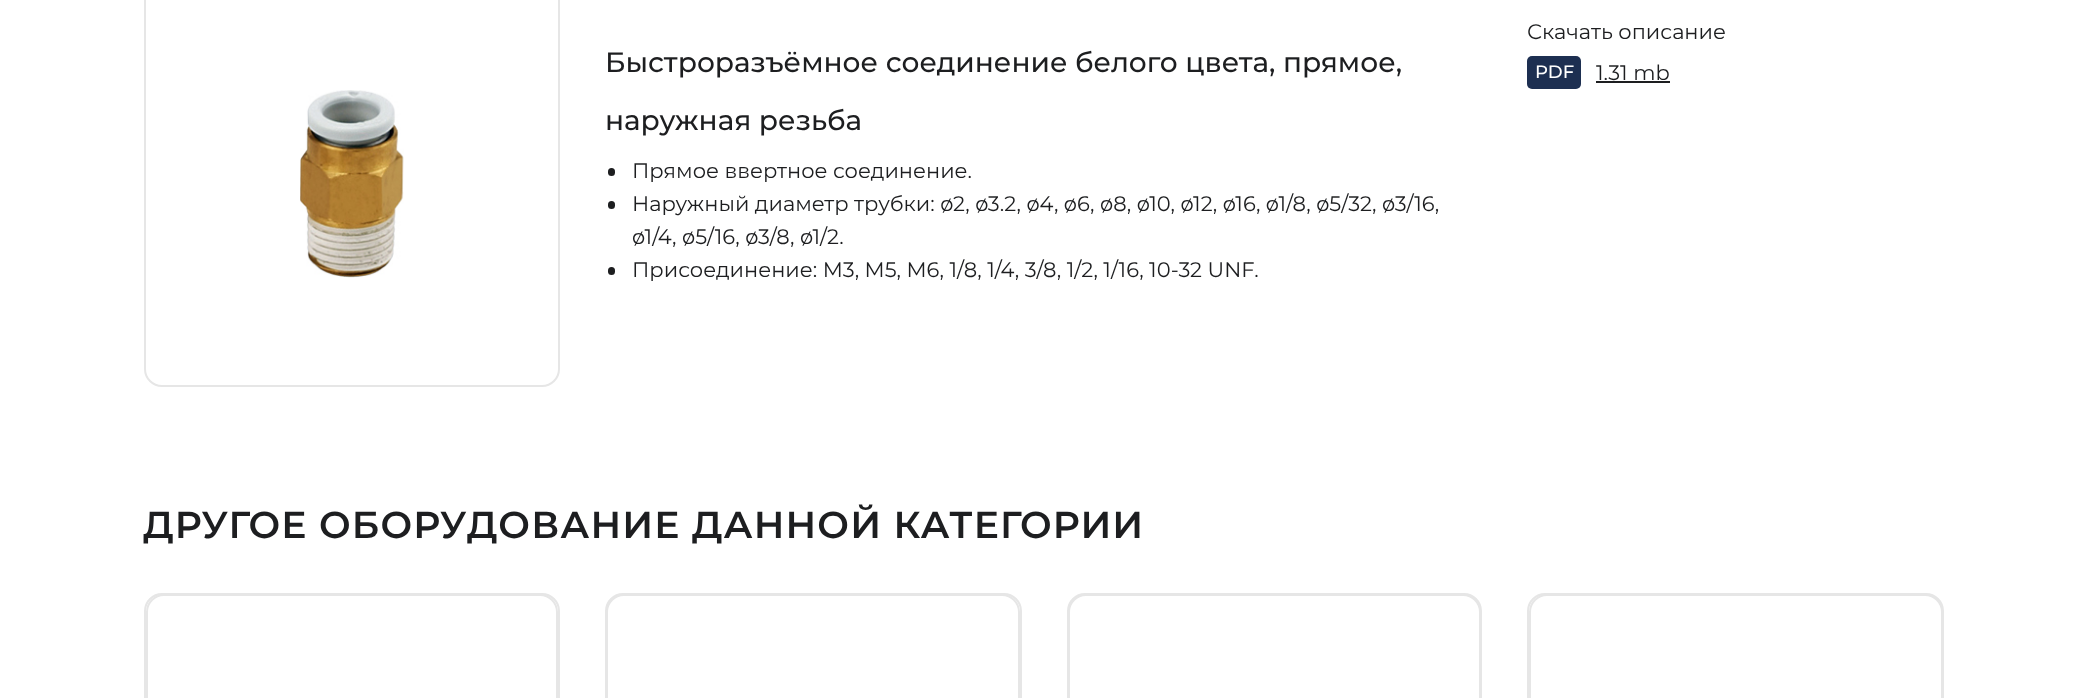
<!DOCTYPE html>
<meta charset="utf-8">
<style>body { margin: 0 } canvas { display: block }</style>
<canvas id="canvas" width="2086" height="698"></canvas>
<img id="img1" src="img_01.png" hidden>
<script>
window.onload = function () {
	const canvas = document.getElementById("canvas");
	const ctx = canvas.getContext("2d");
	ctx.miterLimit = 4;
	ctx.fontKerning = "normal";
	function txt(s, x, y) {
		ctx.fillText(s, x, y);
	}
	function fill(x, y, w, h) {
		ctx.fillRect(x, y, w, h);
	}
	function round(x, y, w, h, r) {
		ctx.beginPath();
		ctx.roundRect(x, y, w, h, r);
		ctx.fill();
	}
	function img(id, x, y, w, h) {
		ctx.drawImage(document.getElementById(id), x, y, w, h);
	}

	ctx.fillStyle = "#FFFFFF";
	fill(0, 0, 2086, 698);
	ctx.beginPath();
	ctx.roundRect(145, -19, 414, 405, 17);
	ctx.strokeStyle = "#E6E6E6";
	ctx.lineWidth = 2;
	ctx.stroke();
	img("img1", 300, 90, 104, 188);
	ctx.fillStyle = "#1D1E20";
	round(608, 168, 7, 8, 3.5);
	round(608, 201, 7, 8, 3.5);
	round(608, 267, 7, 8, 3.5);
	ctx.fillStyle = "#1D2F51";
	round(1527, 56, 54, 33, 5);
	ctx.fillStyle = "#1D1E20";
	fill(1596, 81, 74, 2);
	ctx.beginPath();
	ctx.roundRect(145, 594, 414, 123, 17);
	ctx.stroke();
	ctx.beginPath();
	ctx.roundRect(147, 595, 410, 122, 17);
	ctx.stroke();
	ctx.beginPath();
	ctx.roundRect(606, 594, 415, 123, 17);
	ctx.stroke();
	ctx.beginPath();
	ctx.roundRect(607, 595, 412, 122, 17);
	ctx.stroke();
	ctx.beginPath();
	ctx.roundRect(1068, 594, 413, 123, 17);
	ctx.stroke();
	ctx.beginPath();
	ctx.roundRect(1069, 595, 411, 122, 17);
	ctx.stroke();
	ctx.beginPath();
	ctx.roundRect(1528, 594, 415, 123, 17);
	ctx.stroke();
	ctx.beginPath();
	ctx.roundRect(1530, 595, 412, 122, 17);
	ctx.stroke();
	ctx.font = "500 28px Montserrat";
	txt("Быстроразъёмное соединение белого цвета, прямое,", 605, 72);
	txt("наружная резьба", 605, 130);
	ctx.font = "21px Montserrat";
	txt("Прямое ввертное соединение.", 632, 178);
	txt("Наружный диаметр трубки: ø2, ø3.2, ø4, ø6, ø8, ø10, ø12, ø16, ø1/8, ø5/32, ø3/16,", 632, 211);
	txt("ø1/4, ø5/16, ø3/8, ø1/2.", 632, 244);
	txt("Присоединение: M3, M5, M6, 1/8, 1/4, 3/8, 1/2, 1/16, 10-32 UNF.", 632, 277);
	txt("Скачать описание", 1527, 39);
	ctx.font = "500 18px Montserrat";
	ctx.fillStyle = "#FFFFFF";
	txt("PDF", 1535, 78);
	ctx.font = "21px Montserrat";
	ctx.fillStyle = "#1D1E20";
	txt("1.31 mb", 1596, 80);
	ctx.letterSpacing = "1.1px";
	ctx.font = "600 37.5px Montserrat";
	txt("ДРУГОЕ ОБОРУДОВАНИЕ ДАННОЙ КАТЕГОРИИ", 143, 538);
};
</script>
